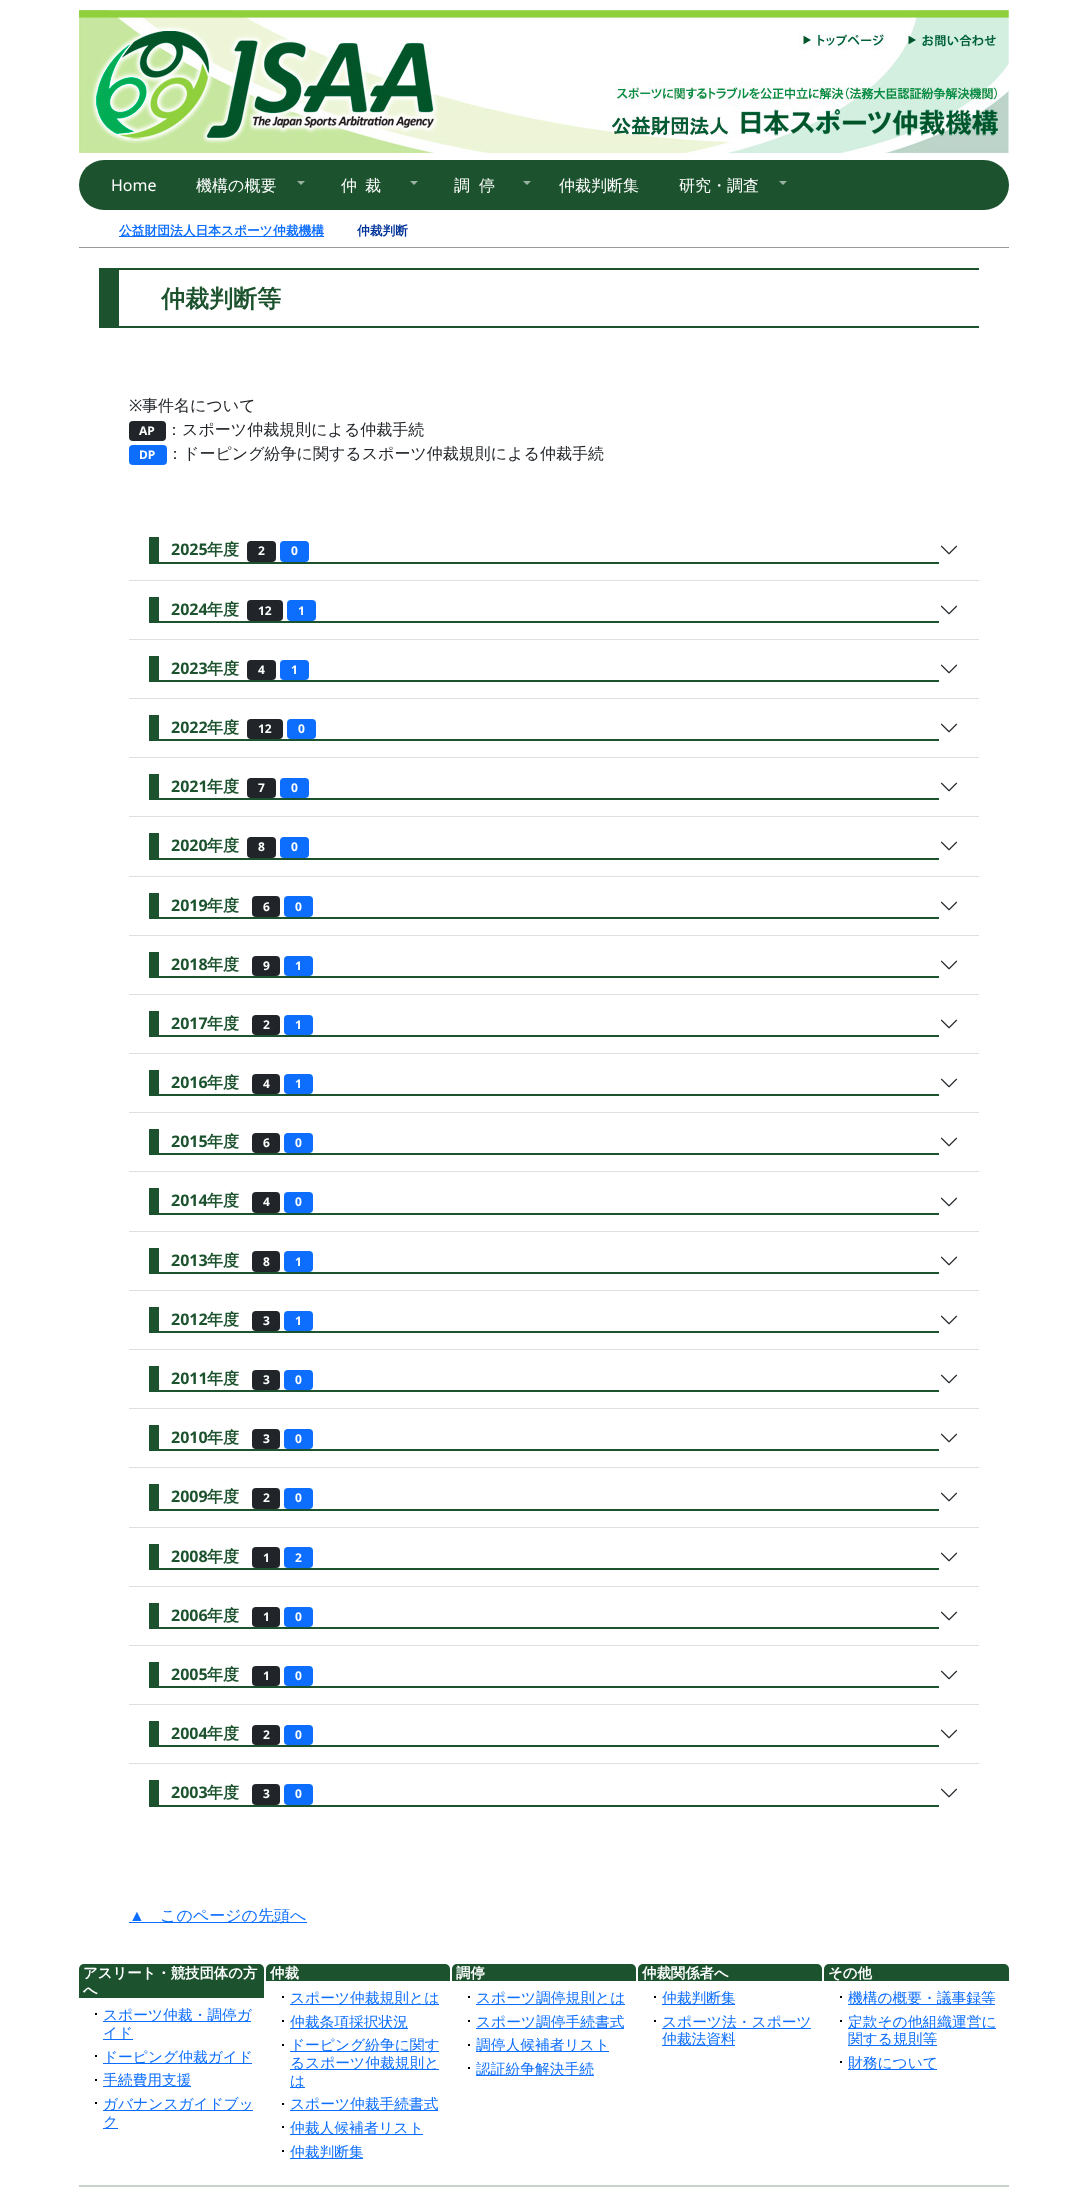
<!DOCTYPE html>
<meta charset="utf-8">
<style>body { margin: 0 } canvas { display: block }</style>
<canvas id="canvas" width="1087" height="2188"></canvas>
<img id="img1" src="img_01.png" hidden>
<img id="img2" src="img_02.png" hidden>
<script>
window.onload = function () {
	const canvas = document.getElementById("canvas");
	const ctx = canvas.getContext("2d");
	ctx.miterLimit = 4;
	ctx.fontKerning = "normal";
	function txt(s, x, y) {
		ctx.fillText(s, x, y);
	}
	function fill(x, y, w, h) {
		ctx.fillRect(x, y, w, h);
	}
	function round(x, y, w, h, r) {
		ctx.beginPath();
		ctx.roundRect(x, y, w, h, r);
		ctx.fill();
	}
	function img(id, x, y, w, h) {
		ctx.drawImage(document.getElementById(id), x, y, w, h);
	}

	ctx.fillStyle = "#FFFFFF";
	fill(0, 0, 1087, 2188);
	img("img1", 79, 10, 930, 150);
	ctx.fillStyle = "#1C532E";
	round(79, 160, 930, 50, 25);
	ctx.fillStyle = "#99B2A1";
	ctx.beginPath();
	ctx.moveTo(297, 181);
	ctx.lineTo(305, 181);
	ctx.lineTo(301, 185);
	ctx.closePath();
	ctx.fill();
	ctx.beginPath();
	ctx.moveTo(410, 181);
	ctx.lineTo(418, 181);
	ctx.lineTo(414, 185);
	ctx.closePath();
	ctx.fill();
	ctx.beginPath();
	ctx.moveTo(523, 181);
	ctx.lineTo(531, 181);
	ctx.lineTo(527, 185);
	ctx.closePath();
	ctx.fill();
	ctx.beginPath();
	ctx.moveTo(779, 181);
	ctx.lineTo(787, 181);
	ctx.lineTo(783, 185);
	ctx.closePath();
	ctx.fill();
	ctx.fillStyle = "#999999";
	fill(79, 247, 930, 1);
	ctx.fillStyle = "#0D6EFD";
	fill(119, 236, 205, 1);
	ctx.fillStyle = "#1C532E";
	fill(119, 268, 860, 2);
	fill(119, 326, 860, 2);
	fill(99, 268, 20, 60);
	ctx.fillStyle = "#212529";
	round(129, 421, 37, 20, 4);
	ctx.fillStyle = "#0D6EFD";
	round(129, 445, 38, 20, 4);
	ctx.fillStyle = "#DFDFDF";
	fill(129, 580, 850, 1);
	ctx.fillStyle = "#1C532E";
	fill(159, 562, 780, 2);
	fill(149, 537, 10, 27);
	ctx.fillStyle = "#212529";
	round(247, 541, 29, 21, 4);
	ctx.fillStyle = "#0D6EFD";
	round(280, 541, 29, 21, 4);
	img("img2", 940, 545, 18, 10);
	ctx.fillStyle = "#DFDFDF";
	fill(129, 639, 850, 1);
	ctx.fillStyle = "#1C532E";
	fill(159, 621, 780, 2);
	fill(149, 597, 10, 26);
	ctx.fillStyle = "#212529";
	round(247, 600, 36, 21, 4);
	ctx.fillStyle = "#0D6EFD";
	round(287, 600, 29, 21, 4);
	img("img2", 940, 605, 18, 10);
	ctx.fillStyle = "#DFDFDF";
	fill(129, 698, 850, 1);
	ctx.fillStyle = "#1C532E";
	fill(159, 680, 780, 2);
	fill(149, 656, 10, 26);
	ctx.fillStyle = "#212529";
	round(247, 660, 29, 20, 4);
	ctx.fillStyle = "#0D6EFD";
	round(280, 660, 29, 20, 4);
	img("img2", 940, 664, 18, 10);
	ctx.fillStyle = "#DFDFDF";
	fill(129, 757, 850, 1);
	ctx.fillStyle = "#1C532E";
	fill(159, 739, 780, 2);
	fill(149, 715, 10, 26);
	ctx.fillStyle = "#212529";
	round(247, 719, 36, 20, 4);
	ctx.fillStyle = "#0D6EFD";
	round(287, 719, 29, 20, 4);
	img("img2", 940, 723, 18, 10);
	ctx.fillStyle = "#DFDFDF";
	fill(129, 816, 850, 1);
	ctx.fillStyle = "#1C532E";
	fill(159, 798, 780, 2);
	fill(149, 774, 10, 26);
	ctx.fillStyle = "#212529";
	round(247, 778, 29, 20, 4);
	ctx.fillStyle = "#0D6EFD";
	round(280, 778, 29, 20, 4);
	img("img2", 940, 782, 18, 10);
	ctx.fillStyle = "#DFDFDF";
	fill(129, 876, 850, 1);
	ctx.fillStyle = "#1C532E";
	fill(159, 858, 780, 2);
	fill(149, 833, 10, 27);
	ctx.fillStyle = "#212529";
	round(247, 837, 29, 21, 4);
	ctx.fillStyle = "#0D6EFD";
	round(280, 837, 29, 21, 4);
	img("img2", 940, 841, 18, 10);
	ctx.fillStyle = "#DFDFDF";
	fill(129, 935, 850, 1);
	ctx.fillStyle = "#1C532E";
	fill(159, 917, 780, 2);
	fill(149, 893, 10, 26);
	ctx.fillStyle = "#212529";
	round(252, 896, 28, 21, 4);
	ctx.fillStyle = "#0D6EFD";
	round(284, 896, 29, 21, 4);
	img("img2", 940, 901, 18, 10);
	ctx.fillStyle = "#DFDFDF";
	fill(129, 994, 850, 1);
	ctx.fillStyle = "#1C532E";
	fill(159, 976, 780, 2);
	fill(149, 952, 10, 26);
	ctx.fillStyle = "#212529";
	round(252, 956, 28, 20, 4);
	ctx.fillStyle = "#0D6EFD";
	round(284, 956, 29, 20, 4);
	img("img2", 940, 960, 18, 10);
	ctx.fillStyle = "#DFDFDF";
	fill(129, 1053, 850, 1);
	ctx.fillStyle = "#1C532E";
	fill(159, 1035, 780, 2);
	fill(149, 1011, 10, 26);
	ctx.fillStyle = "#212529";
	round(252, 1015, 28, 20, 4);
	ctx.fillStyle = "#0D6EFD";
	round(284, 1015, 29, 20, 4);
	img("img2", 940, 1019, 18, 10);
	ctx.fillStyle = "#DFDFDF";
	fill(129, 1112, 850, 1);
	ctx.fillStyle = "#1C532E";
	fill(159, 1094, 780, 2);
	fill(149, 1070, 10, 26);
	ctx.fillStyle = "#212529";
	round(252, 1074, 28, 20, 4);
	ctx.fillStyle = "#0D6EFD";
	round(284, 1074, 29, 20, 4);
	img("img2", 940, 1078, 18, 10);
	ctx.fillStyle = "#DFDFDF";
	fill(129, 1171, 850, 1);
	ctx.fillStyle = "#1C532E";
	fill(159, 1153, 780, 2);
	fill(149, 1129, 10, 26);
	ctx.fillStyle = "#212529";
	round(252, 1133, 28, 20, 4);
	ctx.fillStyle = "#0D6EFD";
	round(284, 1133, 29, 20, 4);
	img("img2", 940, 1137, 18, 10);
	ctx.fillStyle = "#DFDFDF";
	fill(129, 1231, 850, 1);
	ctx.fillStyle = "#1C532E";
	fill(159, 1213, 780, 2);
	fill(149, 1188, 10, 27);
	ctx.fillStyle = "#212529";
	round(252, 1192, 28, 21, 4);
	ctx.fillStyle = "#0D6EFD";
	round(284, 1192, 29, 21, 4);
	img("img2", 940, 1197, 18, 10);
	ctx.fillStyle = "#DFDFDF";
	fill(129, 1290, 850, 1);
	ctx.fillStyle = "#1C532E";
	fill(159, 1272, 780, 2);
	fill(149, 1248, 10, 26);
	ctx.fillStyle = "#212529";
	round(252, 1251, 28, 21, 4);
	ctx.fillStyle = "#0D6EFD";
	round(284, 1251, 29, 21, 4);
	img("img2", 940, 1256, 18, 10);
	ctx.fillStyle = "#DFDFDF";
	fill(129, 1349, 850, 1);
	ctx.fillStyle = "#1C532E";
	fill(159, 1331, 780, 2);
	fill(149, 1307, 10, 26);
	ctx.fillStyle = "#212529";
	round(252, 1311, 28, 20, 4);
	ctx.fillStyle = "#0D6EFD";
	round(284, 1311, 29, 20, 4);
	img("img2", 940, 1315, 18, 10);
	ctx.fillStyle = "#DFDFDF";
	fill(129, 1408, 850, 1);
	ctx.fillStyle = "#1C532E";
	fill(159, 1390, 780, 2);
	fill(149, 1366, 10, 26);
	ctx.fillStyle = "#212529";
	round(252, 1370, 28, 20, 4);
	ctx.fillStyle = "#0D6EFD";
	round(284, 1370, 29, 20, 4);
	img("img2", 940, 1374, 18, 10);
	ctx.fillStyle = "#DFDFDF";
	fill(129, 1467, 850, 1);
	ctx.fillStyle = "#1C532E";
	fill(159, 1449, 780, 2);
	fill(149, 1425, 10, 26);
	ctx.fillStyle = "#212529";
	round(252, 1429, 28, 20, 4);
	ctx.fillStyle = "#0D6EFD";
	round(284, 1429, 29, 20, 4);
	img("img2", 940, 1433, 18, 10);
	ctx.fillStyle = "#DFDFDF";
	fill(129, 1527, 850, 1);
	ctx.fillStyle = "#1C532E";
	fill(159, 1509, 780, 2);
	fill(149, 1484, 10, 27);
	ctx.fillStyle = "#212529";
	round(252, 1488, 28, 21, 4);
	ctx.fillStyle = "#0D6EFD";
	round(284, 1488, 29, 21, 4);
	img("img2", 940, 1492, 18, 10);
	ctx.fillStyle = "#DFDFDF";
	fill(129, 1586, 850, 1);
	ctx.fillStyle = "#1C532E";
	fill(159, 1568, 780, 2);
	fill(149, 1544, 10, 26);
	ctx.fillStyle = "#212529";
	round(252, 1547, 28, 21, 4);
	ctx.fillStyle = "#0D6EFD";
	round(284, 1547, 29, 21, 4);
	img("img2", 940, 1552, 18, 10);
	ctx.fillStyle = "#DFDFDF";
	fill(129, 1645, 850, 1);
	ctx.fillStyle = "#1C532E";
	fill(159, 1627, 780, 2);
	fill(149, 1603, 10, 26);
	ctx.fillStyle = "#212529";
	round(252, 1607, 28, 20, 4);
	ctx.fillStyle = "#0D6EFD";
	round(284, 1607, 29, 20, 4);
	img("img2", 940, 1611, 18, 10);
	ctx.fillStyle = "#DFDFDF";
	fill(129, 1704, 850, 1);
	ctx.fillStyle = "#1C532E";
	fill(159, 1686, 780, 2);
	fill(149, 1662, 10, 26);
	ctx.fillStyle = "#212529";
	round(252, 1666, 28, 20, 4);
	ctx.fillStyle = "#0D6EFD";
	round(284, 1666, 29, 20, 4);
	img("img2", 940, 1670, 18, 10);
	ctx.fillStyle = "#DFDFDF";
	fill(129, 1763, 850, 1);
	ctx.fillStyle = "#1C532E";
	fill(159, 1745, 780, 2);
	fill(149, 1721, 10, 26);
	ctx.fillStyle = "#212529";
	round(252, 1725, 28, 20, 4);
	ctx.fillStyle = "#0D6EFD";
	round(284, 1725, 29, 20, 4);
	img("img2", 940, 1729, 18, 10);
	ctx.fillStyle = "#1C532E";
	fill(159, 1805, 780, 2);
	fill(149, 1780, 10, 27);
	ctx.fillStyle = "#212529";
	round(252, 1784, 28, 21, 4);
	ctx.fillStyle = "#0D6EFD";
	round(284, 1784, 29, 21, 4);
	img("img2", 940, 1788, 18, 10);
	fill(129, 1922, 178, 1);
	ctx.fillStyle = "#1C532E";
	ctx.beginPath();
	ctx.roundRect(79, 1964, 185, 34, [5, 5, 0, 0]);
	ctx.fill();
	ctx.fillStyle = "#000000";
	fill(95, 2013, 2, 2);
	ctx.fillStyle = "#0D6EFD";
	fill(103, 2021, 148, 1);
	fill(103, 2039, 30, 1);
	ctx.fillStyle = "#000000";
	fill(95, 2055, 2, 2);
	ctx.fillStyle = "#0D6EFD";
	fill(103, 2063, 149, 1);
	ctx.fillStyle = "#000000";
	fill(95, 2079, 2, 2);
	ctx.fillStyle = "#0D6EFD";
	fill(103, 2086, 88, 1);
	ctx.fillStyle = "#000000";
	fill(95, 2102, 2, 2);
	ctx.fillStyle = "#0D6EFD";
	fill(103, 2110, 150, 1);
	fill(103, 2128, 15, 1);
	ctx.fillStyle = "#1C532E";
	ctx.beginPath();
	ctx.roundRect(266, 1964, 184, 17, [5, 5, 0, 0]);
	ctx.fill();
	ctx.fillStyle = "#000000";
	fill(282, 1996, 2, 2);
	ctx.fillStyle = "#0D6EFD";
	fill(290, 2004, 149, 1);
	ctx.fillStyle = "#000000";
	fill(282, 2020, 2, 2);
	ctx.fillStyle = "#0D6EFD";
	fill(290, 2028, 118, 1);
	ctx.fillStyle = "#000000";
	fill(282, 2044, 2, 2);
	ctx.fillStyle = "#0D6EFD";
	fill(290, 2051, 149, 1);
	fill(290, 2069, 149, 1);
	fill(290, 2087, 15, 1);
	ctx.fillStyle = "#000000";
	fill(282, 2103, 2, 2);
	ctx.fillStyle = "#0D6EFD";
	fill(290, 2110, 148, 1);
	ctx.fillStyle = "#000000";
	fill(282, 2126, 2, 2);
	ctx.fillStyle = "#0D6EFD";
	fill(290, 2134, 133, 1);
	ctx.fillStyle = "#000000";
	fill(282, 2150, 2, 2);
	ctx.fillStyle = "#0D6EFD";
	fill(290, 2158, 73, 1);
	ctx.fillStyle = "#1C532E";
	ctx.beginPath();
	ctx.roundRect(452, 1964, 184, 17, [5, 5, 0, 0]);
	ctx.fill();
	ctx.fillStyle = "#000000";
	fill(468, 1996, 2, 2);
	ctx.fillStyle = "#0D6EFD";
	fill(476, 2004, 149, 1);
	ctx.fillStyle = "#000000";
	fill(468, 2020, 2, 2);
	ctx.fillStyle = "#0D6EFD";
	fill(476, 2028, 148, 1);
	ctx.fillStyle = "#000000";
	fill(468, 2044, 2, 2);
	ctx.fillStyle = "#0D6EFD";
	fill(476, 2051, 133, 1);
	ctx.fillStyle = "#000000";
	fill(468, 2067, 2, 2);
	ctx.fillStyle = "#0D6EFD";
	fill(476, 2075, 118, 1);
	ctx.fillStyle = "#1C532E";
	ctx.beginPath();
	ctx.roundRect(638, 1964, 184, 17, [5, 5, 0, 0]);
	ctx.fill();
	ctx.fillStyle = "#000000";
	fill(654, 1996, 2, 2);
	ctx.fillStyle = "#0D6EFD";
	fill(662, 2004, 73, 1);
	ctx.fillStyle = "#000000";
	fill(654, 2020, 2, 2);
	ctx.fillStyle = "#0D6EFD";
	fill(662, 2028, 149, 1);
	fill(662, 2045, 73, 1);
	ctx.fillStyle = "#1C532E";
	ctx.beginPath();
	ctx.roundRect(824, 1964, 185, 17, [5, 5, 0, 0]);
	ctx.fill();
	ctx.fillStyle = "#000000";
	fill(840, 1996, 2, 2);
	ctx.fillStyle = "#0D6EFD";
	fill(848, 2004, 147, 1);
	ctx.fillStyle = "#000000";
	fill(840, 2020, 2, 2);
	ctx.fillStyle = "#0D6EFD";
	fill(848, 2028, 148, 1);
	fill(848, 2045, 89, 1);
	ctx.fillStyle = "#000000";
	fill(840, 2061, 2, 2);
	ctx.fillStyle = "#0D6EFD";
	fill(848, 2069, 89, 1);
	ctx.fillStyle = "#C6D4CB";
	fill(79, 2185, 930, 2);
	ctx.font = "16px Noto Sans";
	ctx.fillStyle = "#FFFFFF";
	txt("Home", 111, 191);
	ctx.font = "500 16px WenQuanYi Zen Hei";
	txt("機構の概要", 196, 191);
	txt("仲", 341, 191);
	txt("裁", 365, 191);
	txt("調", 454, 191);
	txt("停", 479, 191);
	txt("仲裁判断集", 559, 191);
	txt("研究・調査", 679, 191);
	ctx.font = "bold 12.75px WenQuanYi Zen Hei";
	ctx.fillStyle = "#0D6EFD";
	txt("公益財団法人日本スポーツ仲裁機構", 119, 235);
	ctx.fillStyle = "#003399";
	txt("仲裁判断", 357, 235);
	ctx.font = "bold 24px WenQuanYi Zen Hei";
	ctx.fillStyle = "#1C532E";
	txt("仲裁判断等", 161, 307);
	ctx.font = "16px Noto Sans";
	ctx.fillStyle = "#212529";
	txt("※", 129, 411);
	ctx.font = "500 16px WenQuanYi Zen Hei";
	txt("事件名について", 142, 411);
	ctx.font = "bold 12px Noto Sans";
	ctx.fillStyle = "#FFFFFF";
	txt("AP", 139, 435);
	ctx.font = "500 16px WenQuanYi Zen Hei";
	ctx.fillStyle = "#212529";
	txt("：スポーツ仲裁規則による仲裁手続", 166, 435);
	ctx.font = "bold 12px Noto Sans";
	ctx.fillStyle = "#FFFFFF";
	txt("DP", 139, 459);
	ctx.font = "500 16px WenQuanYi Zen Hei";
	ctx.fillStyle = "#212529";
	txt("：ドーピング紛争に関するスポーツ仲裁規則による仲裁手続", 167, 459);
	ctx.font = "bold 16px Noto Sans";
	ctx.fillStyle = "#1C532E";
	txt("2025", 171, 555);
	ctx.font = "bold 16px WenQuanYi Zen Hei";
	txt("年度", 207, 555);
	ctx.font = "bold 12px Noto Sans";
	ctx.fillStyle = "#FFFFFF";
	txt("2", 258, 555);
	txt("0", 291, 555);
	ctx.font = "bold 16px Noto Sans";
	ctx.fillStyle = "#1C532E";
	txt("2024", 171, 615);
	ctx.font = "bold 16px WenQuanYi Zen Hei";
	txt("年度", 207, 615);
	ctx.font = "bold 12px Noto Sans";
	ctx.fillStyle = "#FFFFFF";
	txt("12", 258, 615);
	txt("1", 298, 615);
	ctx.font = "bold 16px Noto Sans";
	ctx.fillStyle = "#1C532E";
	txt("2023", 171, 674);
	ctx.font = "bold 16px WenQuanYi Zen Hei";
	txt("年度", 207, 674);
	ctx.font = "bold 12px Noto Sans";
	ctx.fillStyle = "#FFFFFF";
	txt("4", 258, 674);
	txt("1", 291, 674);
	ctx.font = "bold 16px Noto Sans";
	ctx.fillStyle = "#1C532E";
	txt("2022", 171, 733);
	ctx.font = "bold 16px WenQuanYi Zen Hei";
	txt("年度", 207, 733);
	ctx.font = "bold 12px Noto Sans";
	ctx.fillStyle = "#FFFFFF";
	txt("12", 258, 733);
	txt("0", 298, 733);
	ctx.font = "bold 16px Noto Sans";
	ctx.fillStyle = "#1C532E";
	txt("2021", 171, 792);
	ctx.font = "bold 16px WenQuanYi Zen Hei";
	txt("年度", 207, 792);
	ctx.font = "bold 12px Noto Sans";
	ctx.fillStyle = "#FFFFFF";
	txt("7", 258, 792);
	txt("0", 291, 792);
	ctx.font = "bold 16px Noto Sans";
	ctx.fillStyle = "#1C532E";
	txt("2020", 171, 851);
	ctx.font = "bold 16px WenQuanYi Zen Hei";
	txt("年度", 207, 851);
	ctx.font = "bold 12px Noto Sans";
	ctx.fillStyle = "#FFFFFF";
	txt("8", 258, 851);
	txt("0", 291, 851);
	ctx.font = "bold 16px Noto Sans";
	ctx.fillStyle = "#1C532E";
	txt("2019", 171, 911);
	ctx.font = "bold 16px WenQuanYi Zen Hei";
	txt("年度", 207, 911);
	ctx.font = "bold 12px Noto Sans";
	ctx.fillStyle = "#FFFFFF";
	txt("6", 263, 911);
	txt("0", 295, 911);
	ctx.font = "bold 16px Noto Sans";
	ctx.fillStyle = "#1C532E";
	txt("2018", 171, 970);
	ctx.font = "bold 16px WenQuanYi Zen Hei";
	txt("年度", 207, 970);
	ctx.font = "bold 12px Noto Sans";
	ctx.fillStyle = "#FFFFFF";
	txt("9", 263, 970);
	txt("1", 295, 970);
	ctx.font = "bold 16px Noto Sans";
	ctx.fillStyle = "#1C532E";
	txt("2017", 171, 1029);
	ctx.font = "bold 16px WenQuanYi Zen Hei";
	txt("年度", 207, 1029);
	ctx.font = "bold 12px Noto Sans";
	ctx.fillStyle = "#FFFFFF";
	txt("2", 263, 1029);
	txt("1", 295, 1029);
	ctx.font = "bold 16px Noto Sans";
	ctx.fillStyle = "#1C532E";
	txt("2016", 171, 1088);
	ctx.font = "bold 16px WenQuanYi Zen Hei";
	txt("年度", 207, 1088);
	ctx.font = "bold 12px Noto Sans";
	ctx.fillStyle = "#FFFFFF";
	txt("4", 263, 1088);
	txt("1", 295, 1088);
	ctx.font = "bold 16px Noto Sans";
	ctx.fillStyle = "#1C532E";
	txt("2015", 171, 1147);
	ctx.font = "bold 16px WenQuanYi Zen Hei";
	txt("年度", 207, 1147);
	ctx.font = "bold 12px Noto Sans";
	ctx.fillStyle = "#FFFFFF";
	txt("6", 263, 1147);
	txt("0", 295, 1147);
	ctx.font = "bold 16px Noto Sans";
	ctx.fillStyle = "#1C532E";
	txt("2014", 171, 1206);
	ctx.font = "bold 16px WenQuanYi Zen Hei";
	txt("年度", 207, 1206);
	ctx.font = "bold 12px Noto Sans";
	ctx.fillStyle = "#FFFFFF";
	txt("4", 263, 1206);
	txt("0", 295, 1206);
	ctx.font = "bold 16px Noto Sans";
	ctx.fillStyle = "#1C532E";
	txt("2013", 171, 1266);
	ctx.font = "bold 16px WenQuanYi Zen Hei";
	txt("年度", 207, 1266);
	ctx.font = "bold 12px Noto Sans";
	ctx.fillStyle = "#FFFFFF";
	txt("8", 263, 1266);
	txt("1", 295, 1266);
	ctx.font = "bold 16px Noto Sans";
	ctx.fillStyle = "#1C532E";
	txt("2012", 171, 1325);
	ctx.font = "bold 16px WenQuanYi Zen Hei";
	txt("年度", 207, 1325);
	ctx.font = "bold 12px Noto Sans";
	ctx.fillStyle = "#FFFFFF";
	txt("3", 263, 1325);
	txt("1", 295, 1325);
	ctx.font = "bold 16px Noto Sans";
	ctx.fillStyle = "#1C532E";
	txt("2011", 171, 1384);
	ctx.font = "bold 16px WenQuanYi Zen Hei";
	txt("年度", 207, 1384);
	ctx.font = "bold 12px Noto Sans";
	ctx.fillStyle = "#FFFFFF";
	txt("3", 263, 1384);
	txt("0", 295, 1384);
	ctx.font = "bold 16px Noto Sans";
	ctx.fillStyle = "#1C532E";
	txt("2010", 171, 1443);
	ctx.font = "bold 16px WenQuanYi Zen Hei";
	txt("年度", 207, 1443);
	ctx.font = "bold 12px Noto Sans";
	ctx.fillStyle = "#FFFFFF";
	txt("3", 263, 1443);
	txt("0", 295, 1443);
	ctx.font = "bold 16px Noto Sans";
	ctx.fillStyle = "#1C532E";
	txt("2009", 171, 1502);
	ctx.font = "bold 16px WenQuanYi Zen Hei";
	txt("年度", 207, 1502);
	ctx.font = "bold 12px Noto Sans";
	ctx.fillStyle = "#FFFFFF";
	txt("2", 263, 1502);
	txt("0", 295, 1502);
	ctx.font = "bold 16px Noto Sans";
	ctx.fillStyle = "#1C532E";
	txt("2008", 171, 1562);
	ctx.font = "bold 16px WenQuanYi Zen Hei";
	txt("年度", 207, 1562);
	ctx.font = "bold 12px Noto Sans";
	ctx.fillStyle = "#FFFFFF";
	txt("1", 263, 1562);
	txt("2", 295, 1562);
	ctx.font = "bold 16px Noto Sans";
	ctx.fillStyle = "#1C532E";
	txt("2006", 171, 1621);
	ctx.font = "bold 16px WenQuanYi Zen Hei";
	txt("年度", 207, 1621);
	ctx.font = "bold 12px Noto Sans";
	ctx.fillStyle = "#FFFFFF";
	txt("1", 263, 1621);
	txt("0", 295, 1621);
	ctx.font = "bold 16px Noto Sans";
	ctx.fillStyle = "#1C532E";
	txt("2005", 171, 1680);
	ctx.font = "bold 16px WenQuanYi Zen Hei";
	txt("年度", 207, 1680);
	ctx.font = "bold 12px Noto Sans";
	ctx.fillStyle = "#FFFFFF";
	txt("1", 263, 1680);
	txt("0", 295, 1680);
	ctx.font = "bold 16px Noto Sans";
	ctx.fillStyle = "#1C532E";
	txt("2004", 171, 1739);
	ctx.font = "bold 16px WenQuanYi Zen Hei";
	txt("年度", 207, 1739);
	ctx.font = "bold 12px Noto Sans";
	ctx.fillStyle = "#FFFFFF";
	txt("2", 263, 1739);
	txt("0", 295, 1739);
	ctx.font = "bold 16px Noto Sans";
	ctx.fillStyle = "#1C532E";
	txt("2003", 171, 1798);
	ctx.font = "bold 16px WenQuanYi Zen Hei";
	txt("年度", 207, 1798);
	ctx.font = "bold 12px Noto Sans";
	ctx.fillStyle = "#FFFFFF";
	txt("3", 263, 1798);
	txt("0", 295, 1798);
	ctx.font = "16px Liberation Sans";
	ctx.fillStyle = "#0D6EFD";
	txt("▲", 129, 1921);
	ctx.font = "500 16px WenQuanYi Zen Hei";
	txt("このページの先頭へ", 160, 1921);
	ctx.font = "bold 14.4px WenQuanYi Zen Hei";
	ctx.fillStyle = "#FFFFFF";
	txt("アスリート・競技団体の方", 83, 1978);
	txt("へ", 83, 1995);
	ctx.font = "500 14.75px WenQuanYi Zen Hei";
	ctx.fillStyle = "#0D6EFD";
	txt("スポーツ仲裁・調停ガ", 103, 2020);
	txt("イド", 103, 2038);
	txt("ドーピング仲裁ガイド", 103, 2062);
	txt("手続費用支援", 103, 2085);
	txt("ガバナンスガイドブッ", 103, 2109);
	txt("ク", 103, 2127);
	ctx.font = "bold 14.4px WenQuanYi Zen Hei";
	ctx.fillStyle = "#FFFFFF";
	txt("仲裁", 270, 1978);
	ctx.font = "500 14.75px WenQuanYi Zen Hei";
	ctx.fillStyle = "#0D6EFD";
	txt("スポーツ仲裁規則とは", 290, 2003);
	txt("仲裁条項採択状況", 290, 2027);
	txt("ドーピング紛争に関す", 290, 2050);
	txt("るスポーツ仲裁規則と", 290, 2068);
	txt("は", 290, 2086);
	txt("スポーツ仲裁手続書式", 290, 2109);
	txt("仲裁人候補者リスト", 290, 2133);
	txt("仲裁判断集", 290, 2157);
	ctx.font = "bold 14.4px WenQuanYi Zen Hei";
	ctx.fillStyle = "#FFFFFF";
	txt("調停", 456, 1978);
	ctx.font = "500 14.75px WenQuanYi Zen Hei";
	ctx.fillStyle = "#0D6EFD";
	txt("スポーツ調停規則とは", 476, 2003);
	txt("スポーツ調停手続書式", 476, 2027);
	txt("調停人候補者リスト", 476, 2050);
	txt("認証紛争解決手続", 476, 2074);
	ctx.font = "bold 14.4px WenQuanYi Zen Hei";
	ctx.fillStyle = "#FFFFFF";
	txt("仲裁関係者へ", 642, 1978);
	ctx.font = "500 14.75px WenQuanYi Zen Hei";
	ctx.fillStyle = "#0D6EFD";
	txt("仲裁判断集", 662, 2003);
	txt("スポーツ法・スポーツ", 662, 2027);
	txt("仲裁法資料", 662, 2044);
	ctx.font = "bold 14.4px WenQuanYi Zen Hei";
	ctx.fillStyle = "#FFFFFF";
	txt("その他", 828, 1978);
	ctx.font = "500 14.75px WenQuanYi Zen Hei";
	ctx.fillStyle = "#0D6EFD";
	txt("機構の概要・議事録等", 848, 2003);
	txt("定款その他組織運営に", 848, 2027);
	txt("関する規則等", 848, 2044);
	txt("財務について", 848, 2068);
};
</script>
